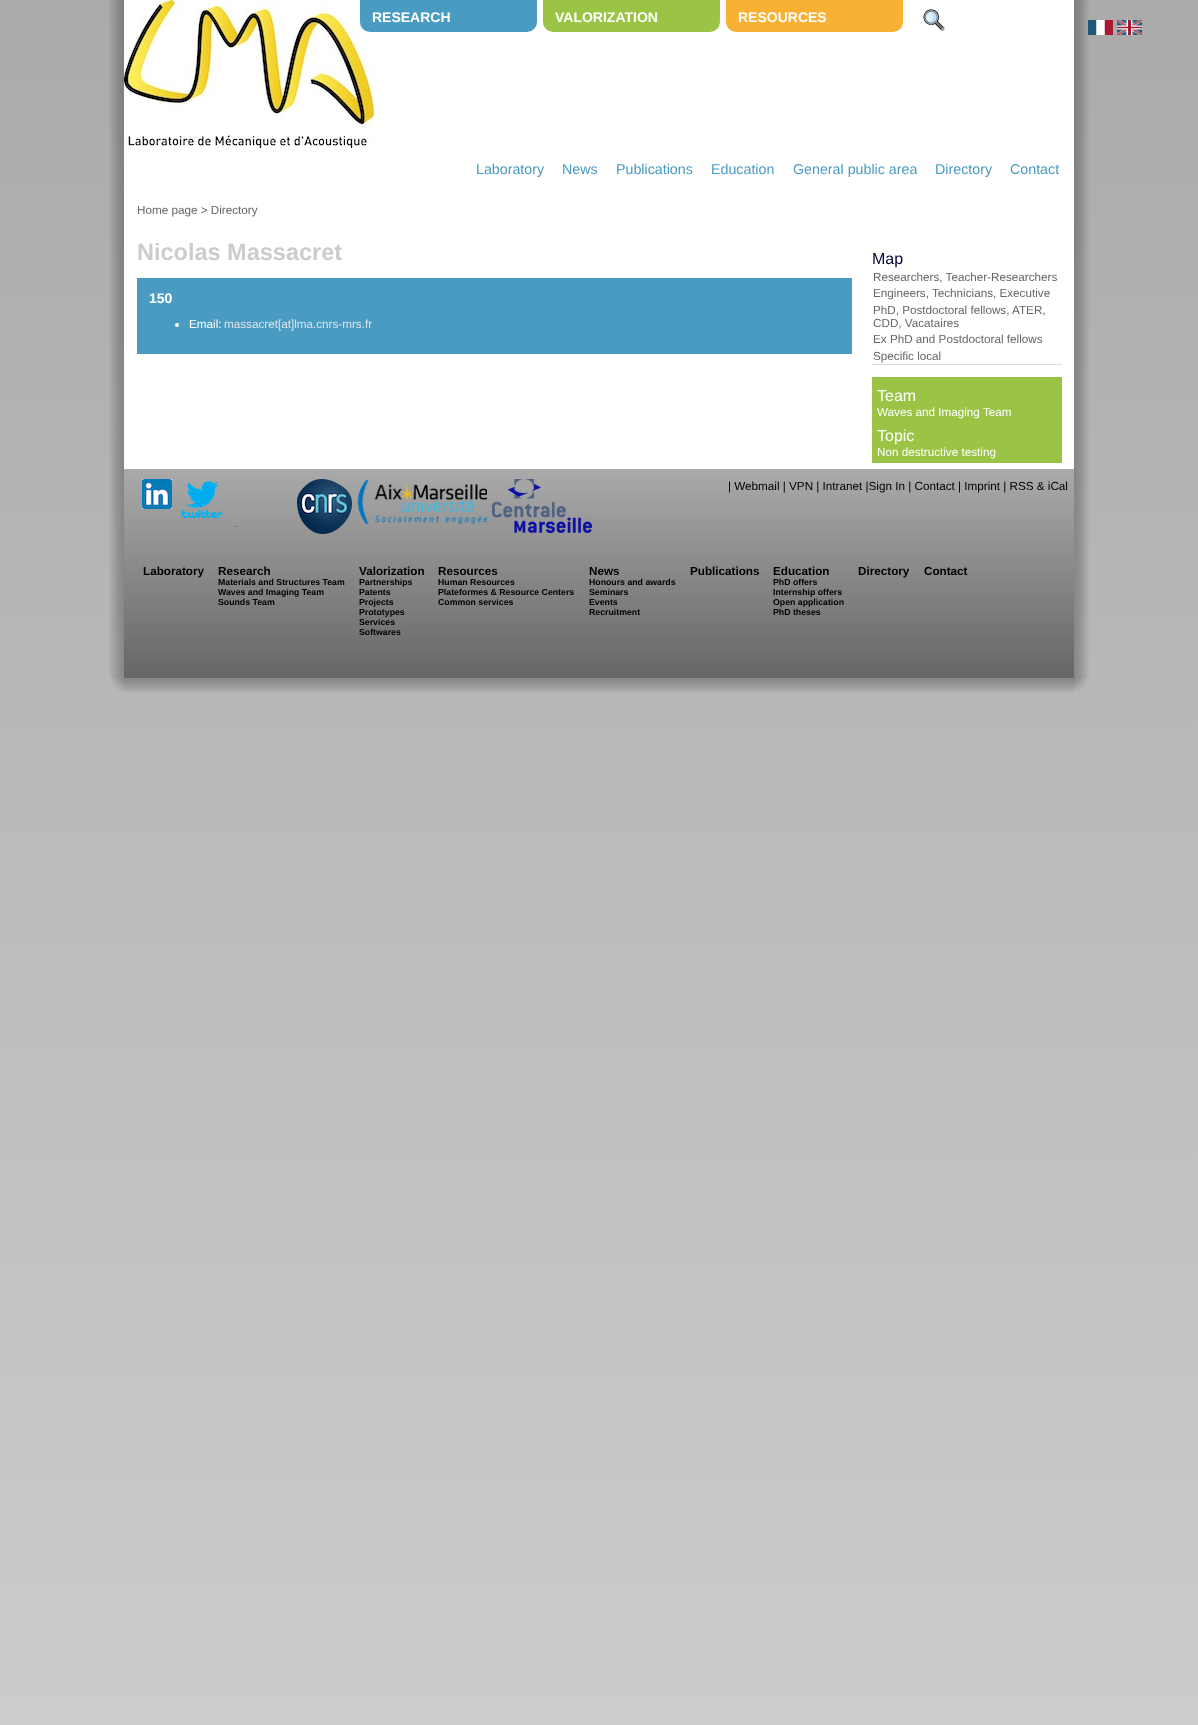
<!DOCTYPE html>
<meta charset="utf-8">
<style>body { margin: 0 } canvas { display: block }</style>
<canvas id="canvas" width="1198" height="1725"></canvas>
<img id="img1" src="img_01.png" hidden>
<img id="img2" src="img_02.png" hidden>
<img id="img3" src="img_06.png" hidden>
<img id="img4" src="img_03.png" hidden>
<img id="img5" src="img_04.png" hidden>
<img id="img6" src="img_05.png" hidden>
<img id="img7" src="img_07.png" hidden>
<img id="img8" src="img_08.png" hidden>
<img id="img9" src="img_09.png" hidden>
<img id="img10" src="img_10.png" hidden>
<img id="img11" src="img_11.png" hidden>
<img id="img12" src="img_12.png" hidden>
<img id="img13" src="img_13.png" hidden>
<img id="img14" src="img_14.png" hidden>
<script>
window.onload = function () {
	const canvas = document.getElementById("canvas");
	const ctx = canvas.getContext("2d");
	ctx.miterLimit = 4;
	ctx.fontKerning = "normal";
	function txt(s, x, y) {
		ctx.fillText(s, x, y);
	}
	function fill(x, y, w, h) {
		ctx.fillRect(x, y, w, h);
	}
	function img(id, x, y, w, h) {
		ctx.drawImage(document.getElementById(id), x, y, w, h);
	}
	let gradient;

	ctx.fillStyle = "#FFFFFF";
	fill(0, 0, 1198, 1725);
	gradient = ctx.createLinearGradient(0, 0, 0, 1725);
	gradient.addColorStop(0, "#AAAAAA");
	gradient.addColorStop(1, "#CCCCCC");
	ctx.fillStyle = gradient;
	fill(0, 0, 1198, 1725);
	ctx.fillStyle = "#FFFFFF";
	fill(124, 0, 950, 469);
	img("img1", 109, 0, 15, 678);
	img("img2", 124, 0, 250, 148);
	img("img3", 1074, 0, 15, 678);
	img("img4", 1088, 20, 25, 15);
	img("img5", 1117, 20, 25, 15);
	ctx.fillStyle = "#4A9BC1";
	ctx.beginPath();
	ctx.roundRect(360, 0, 177, 32, [0, 0, 10, 10]);
	ctx.fill();
	ctx.fillStyle = "#9BC447";
	ctx.beginPath();
	ctx.roundRect(543, 0, 177, 32, [0, 0, 10, 10]);
	ctx.fill();
	ctx.fillStyle = "#F8B133";
	ctx.beginPath();
	ctx.roundRect(726, 0, 177, 32, [0, 0, 10, 10]);
	ctx.fill();
	img("img6", 923, 9, 22, 22);
	ctx.fillStyle = "#4A9BC1";
	fill(137, 278, 715, 76);
	ctx.fillStyle = "#FFFFFF";
	ctx.beginPath();
	ctx.arc(177, 325, 2, 0, Math.PI * 2);
	ctx.fill();
	ctx.fillStyle = "#DDDDDD";
	fill(872, 364, 190, 1);
	ctx.fillStyle = "#9BC447";
	fill(872, 377, 190, 86);
	gradient = ctx.createLinearGradient(599, 469, 599, 678);
	gradient.addColorStop(0, "#AAAAAA");
	gradient.addColorStop(1, "#666666");
	ctx.fillStyle = gradient;
	fill(124, 469, 950, 209);
	img("img7", 142, 479, 30, 30);
	img("img8", 181, 481, 42, 38);
	img("img9", 297, 479, 55, 55);
	img("img10", 357, 479, 130, 45);
	img("img11", 492, 479, 100, 54);
	img("img12", 111, 678, 13, 13);
	img("img13", 124, 678, 950, 15);
	img("img14", 1074, 678, 13, 13);
	ctx.font = "bold 14px Liberation Sans";
	ctx.fillStyle = "#FFFFFF";
	txt("RESEARCH", 372, 22);
	txt("VALORIZATION", 555, 22);
	txt("RESOURCES", 738, 22);
	ctx.font = "14.25px Liberation Sans";
	ctx.fillStyle = "#4A9BC1";
	txt("Laboratory", 476, 174);
	txt("News", 562, 174);
	txt("Publications", 616, 174);
	txt("Education", 711, 174);
	txt("General public area", 793, 174);
	txt("Directory", 935, 174);
	txt("Contact", 1010, 174);
	ctx.font = "11.7px Liberation Sans";
	ctx.fillStyle = "#666666";
	txt("Home page > Directory", 137, 214);
	ctx.font = "bold 23.5px Liberation Sans";
	ctx.fillStyle = "#CCCCCC";
	txt("Nicolas Massacret", 137, 260);
	ctx.font = "bold 14px Liberation Sans";
	ctx.fillStyle = "#FFFFFF";
	txt("150", 149, 303);
	ctx.font = "11.7px Liberation Sans";
	txt("Email:", 189, 328);
	ctx.fillStyle = "#DBE3EC";
	txt("massacret[at]lma.cnrs-mrs.fr", 224, 328);
	ctx.font = "16px Liberation Sans";
	ctx.fillStyle = "#000033";
	txt("Map", 872, 264);
	ctx.font = "11.7px Liberation Sans";
	ctx.fillStyle = "#666666";
	txt("Researchers, Teacher-Researchers", 873, 281);
	txt("Engineers, Technicians, Executive", 873, 297);
	txt("PhD, Postdoctoral fellows, ATER,", 873, 314);
	txt("CDD, Vacataires", 873, 327);
	txt("Ex PhD and Postdoctoral fellows", 873, 343);
	txt("Specific local", 873, 360);
	ctx.font = "16px Liberation Sans";
	ctx.fillStyle = "#FFFFFF";
	txt("Team", 877, 401);
	ctx.font = "11.7px Liberation Sans";
	txt("Waves and Imaging Team", 877, 416);
	ctx.font = "16px Liberation Sans";
	txt("Topic", 877, 441);
	ctx.font = "11.7px Liberation Sans";
	txt("Non destructive testing", 877, 456);
	ctx.fillStyle = "#000000";
	txt("| Webmail | VPN | Intranet |Sign In | Contact | Imprint | RSS & iCal", 728, 490);
	ctx.font = "8px Liberation Sans";
	txt(".", 235, 527);
	ctx.font = "bold 11.7px Liberation Sans";
	txt("Laboratory", 143, 575);
	txt("Research", 218, 575);
	ctx.font = "bold 8.75px Liberation Sans";
	txt("Materials and Structures Team", 218, 585);
	txt("Waves and Imaging Team", 218, 595);
	txt("Sounds Team", 218, 605);
	ctx.font = "bold 11.7px Liberation Sans";
	txt("Valorization", 359, 575);
	ctx.font = "bold 8.75px Liberation Sans";
	txt("Partnerships", 359, 585);
	txt("Patents", 359, 595);
	txt("Projects", 359, 605);
	txt("Prototypes", 359, 615);
	txt("Services", 359, 625);
	txt("Softwares", 359, 635);
	ctx.font = "bold 11.7px Liberation Sans";
	txt("Resources", 438, 575);
	ctx.font = "bold 8.75px Liberation Sans";
	txt("Human Resources", 438, 585);
	txt("Plateformes & Resource Centers", 438, 595);
	txt("Common services", 438, 605);
	ctx.font = "bold 11.7px Liberation Sans";
	txt("News", 589, 575);
	ctx.font = "bold 8.75px Liberation Sans";
	txt("Honours and awards", 589, 585);
	txt("Seminars", 589, 595);
	txt("Events", 589, 605);
	txt("Recruitment", 589, 615);
	ctx.font = "bold 11.7px Liberation Sans";
	txt("Publications", 690, 575);
	txt("Education", 773, 575);
	ctx.font = "bold 8.75px Liberation Sans";
	txt("PhD offers", 773, 585);
	txt("Internship offers", 773, 595);
	txt("Open application", 773, 605);
	txt("PhD theses", 773, 615);
	ctx.font = "bold 11.7px Liberation Sans";
	txt("Directory", 858, 575);
	txt("Contact", 924, 575);
};
</script>
